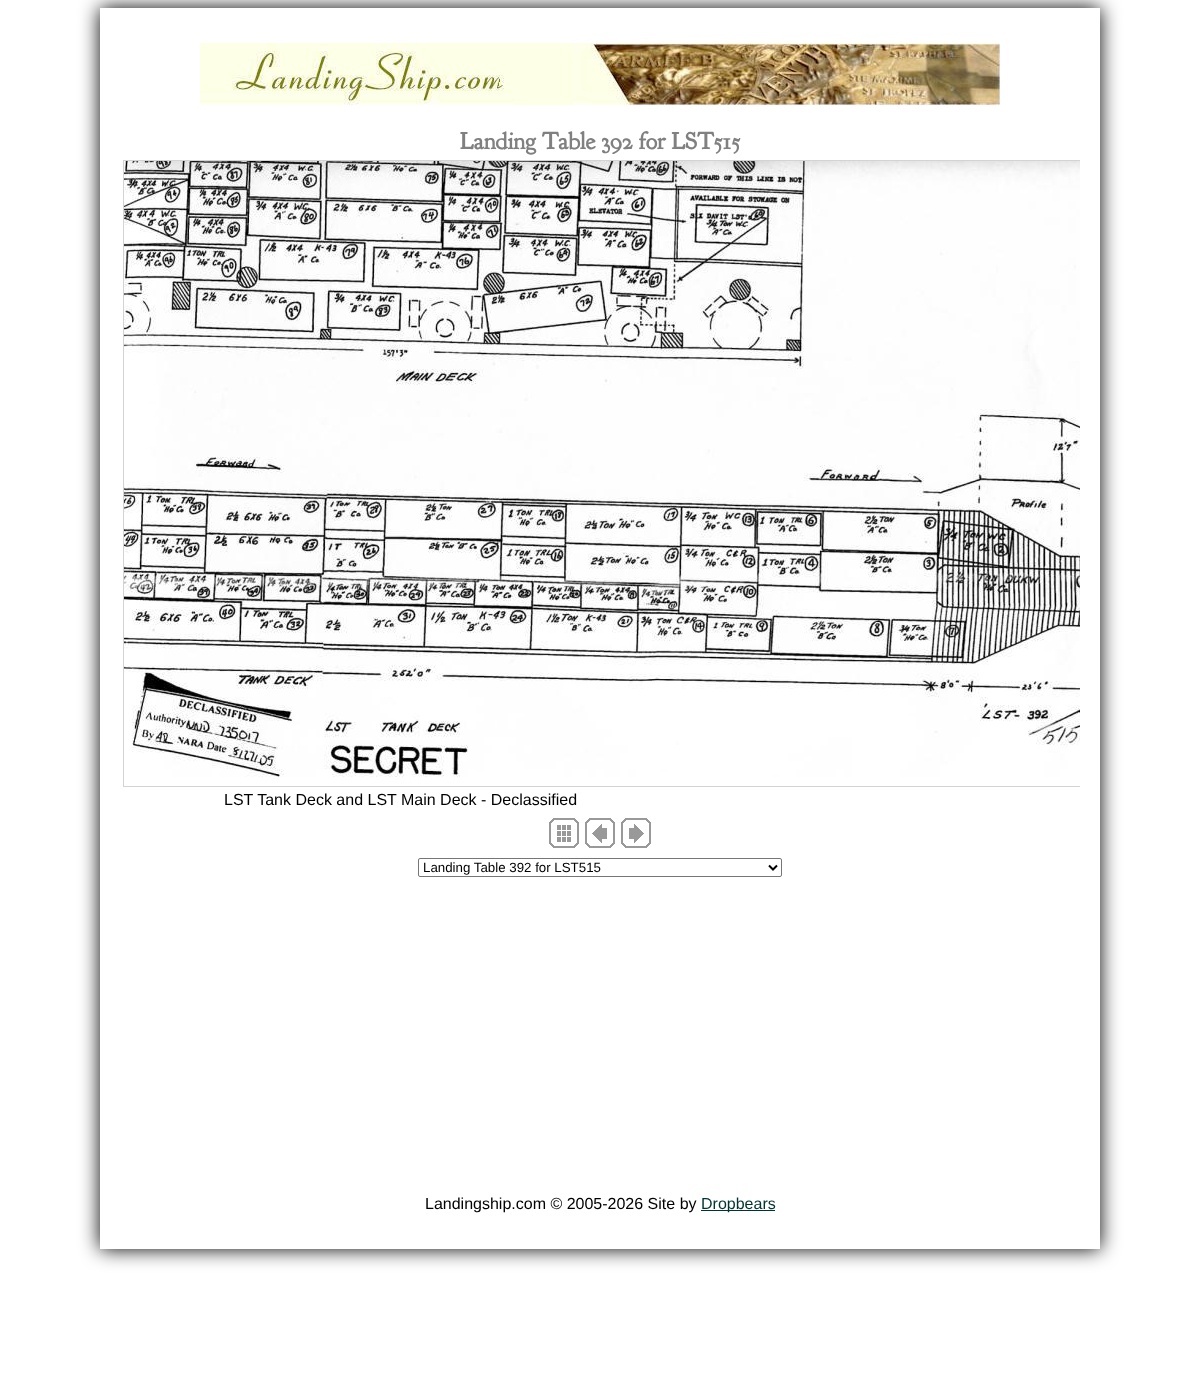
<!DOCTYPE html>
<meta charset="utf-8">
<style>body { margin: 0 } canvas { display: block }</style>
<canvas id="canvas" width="1200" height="1396"></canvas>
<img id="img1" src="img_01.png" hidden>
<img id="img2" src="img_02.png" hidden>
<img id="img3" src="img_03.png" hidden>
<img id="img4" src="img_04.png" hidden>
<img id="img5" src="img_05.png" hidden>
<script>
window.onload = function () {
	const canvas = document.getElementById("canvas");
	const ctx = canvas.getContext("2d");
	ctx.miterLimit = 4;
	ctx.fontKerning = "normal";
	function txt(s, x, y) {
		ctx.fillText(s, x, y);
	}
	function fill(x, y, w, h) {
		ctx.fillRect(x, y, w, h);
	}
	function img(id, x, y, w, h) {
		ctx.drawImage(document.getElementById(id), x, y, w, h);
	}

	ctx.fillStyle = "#FFFFFF";
	fill(0, 0, 1200, 1396);
	ctx.save();
	ctx.beginPath();
	ctx.moveTo(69, 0);
	ctx.lineTo(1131, 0);
	ctx.lineTo(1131, 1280);
	ctx.lineTo(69, 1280);
	ctx.closePath();
	ctx.moveTo(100, 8);
	ctx.lineTo(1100, 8);
	ctx.lineTo(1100, 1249);
	ctx.lineTo(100, 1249);
	ctx.closePath();
	ctx.clip("evenodd");
	ctx.fillStyle = "#000000";
	ctx.filter = "blur(10px)";
	ctx.beginPath();
	ctx.rect(100, 8, 1000, 1241);
	ctx.fill();
	ctx.filter = "none";
	ctx.restore();
	img("img1", 200, 43, 800, 62);
	ctx.save();
	ctx.beginPath();
	ctx.rect(120, 28, 960, 1201);
	ctx.clip();
	ctx.strokeStyle = "#D3D3D3";
	ctx.strokeRect(123.5, 160.5, 1001, 626);
	ctx.restore();
	img("img2", 124, 161, 956, 616);
	img("img3", 549, 818, 30, 30);
	img("img4", 585, 818, 30, 30);
	img("img5", 621, 818, 30, 30);
	ctx.beginPath();
	ctx.roundRect(418.5, 858.5, 363, 18, 1.5);
	ctx.strokeStyle = "#767676";
	ctx.stroke();
	ctx.beginPath();
	ctx.moveTo(769, 865.5);
	ctx.lineTo(773, 869.5);
	ctx.lineTo(777, 865.5);
	ctx.strokeStyle = "#000000";
	ctx.lineWidth = 2;
	ctx.stroke();
	ctx.fillStyle = "#003333";
	fill(701, 1210, 74, 1);
	ctx.font = "bold 24px 'Goudy Bookletter 1911'";
	ctx.fillStyle = "#808080";
	txt("Landing Table 392 for LST515", 460, 149);
	ctx.font = "16px Liberation Sans";
	ctx.fillStyle = "#000000";
	txt("LST Tank Deck and LST Main Deck - Declassified", 224, 805);
	ctx.font = "13.3px Liberation Sans";
	txt("Landing Table 392 for LST515", 423, 872);
	ctx.font = "16px Liberation Sans";
	txt("Landingship.com © 2005-2026 Site by", 425, 1209);
	ctx.fillStyle = "#003333";
	txt("Dropbears", 701, 1209);
};
</script>
